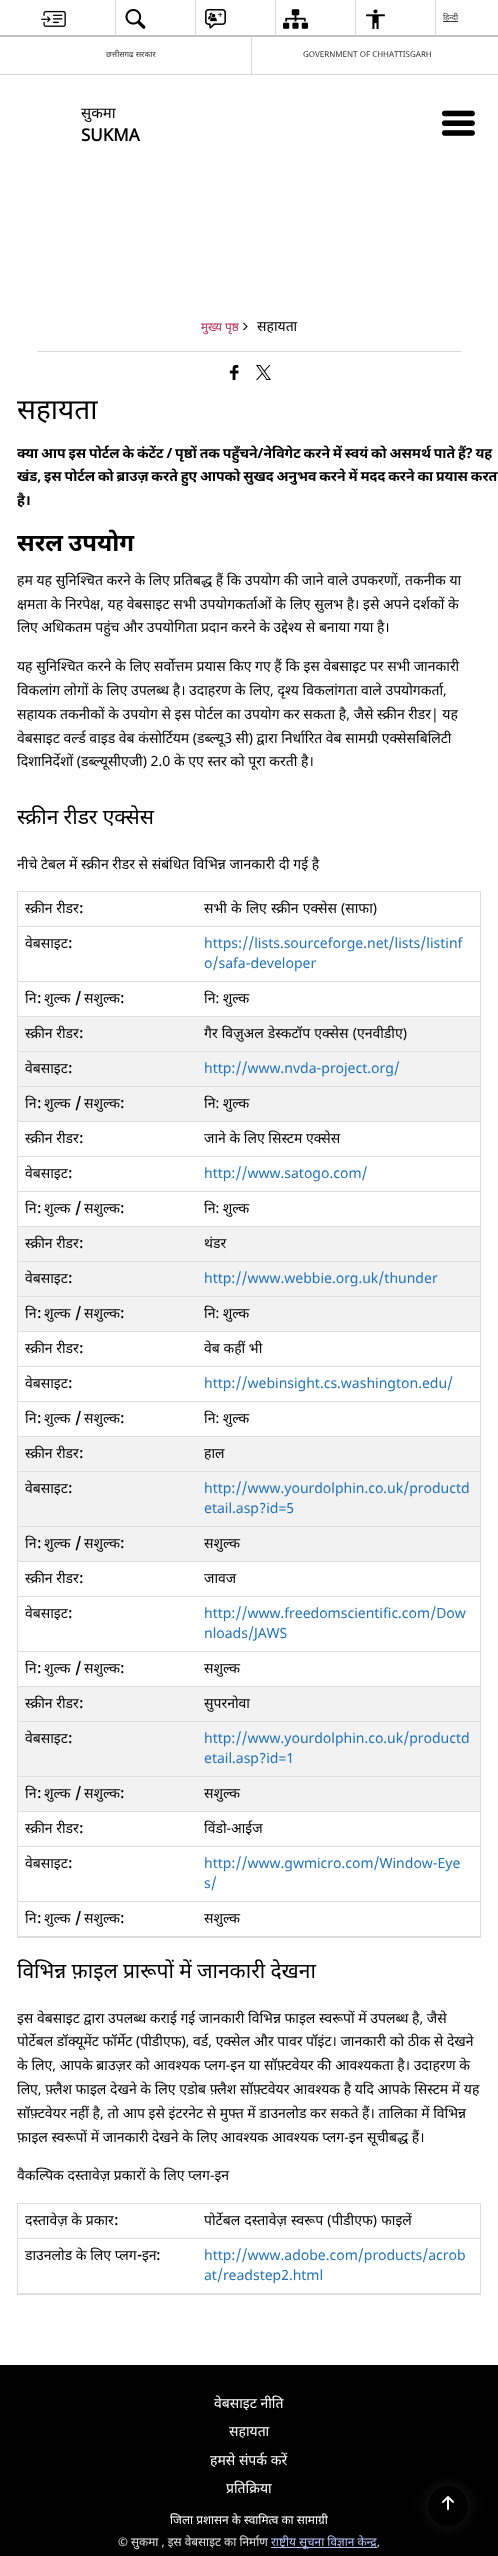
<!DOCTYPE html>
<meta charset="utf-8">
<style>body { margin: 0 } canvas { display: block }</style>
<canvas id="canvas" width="498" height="2556"></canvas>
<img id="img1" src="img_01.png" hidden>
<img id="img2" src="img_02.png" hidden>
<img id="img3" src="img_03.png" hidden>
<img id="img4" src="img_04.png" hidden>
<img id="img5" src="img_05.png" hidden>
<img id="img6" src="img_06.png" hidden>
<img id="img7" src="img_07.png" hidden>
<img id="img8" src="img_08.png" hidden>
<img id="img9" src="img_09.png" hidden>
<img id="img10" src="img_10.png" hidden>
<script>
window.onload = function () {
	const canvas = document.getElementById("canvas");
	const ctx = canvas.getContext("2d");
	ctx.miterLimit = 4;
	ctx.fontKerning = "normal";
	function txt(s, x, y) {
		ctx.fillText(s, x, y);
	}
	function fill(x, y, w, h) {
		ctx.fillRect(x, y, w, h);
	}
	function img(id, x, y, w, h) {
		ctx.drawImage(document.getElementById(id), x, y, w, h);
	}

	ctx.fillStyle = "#FFFFFF";
	fill(0, 0, 498, 2556);
	ctx.fillStyle = "#D8D8D8";
	fill(0, 74, 498, 1);
	img("img1", 41, 10, 25, 17);
	fill(115, 0, 1, 37);
	img("img2", 125, 9, 21, 20);
	fill(195, 0, 1, 37);
	img("img3", 205, 9, 21, 20);
	fill(275, 0, 1, 37);
	img("img4", 283, 9, 25, 20);
	fill(355, 0, 1, 37);
	img("img5", 366, 9, 19, 20);
	fill(435, 0, 1, 37);
	ctx.fillStyle = "#333333";
	fill(443, 21, 15, 1);
	ctx.fillStyle = "#D8D8D8";
	fill(251, 37, 1, 37);
	ctx.fillStyle = "#C2C0C1";
	fill(0, 35, 498, 2);
	img("img6", 441, 110, 34, 26);
	ctx.fillStyle = "#D8D8D8";
	fill(37, 351, 424, 1);
	img("img7", 243, 322, 5, 9);
	img("img8", 229, 365, 10, 15);
	img("img9", 256, 365, 15, 15);
	ctx.fillStyle = "#DDDDDD";
	fill(17, 891, 464, 1);
	fill(480, 891, 1, 1047);
	fill(17, 1937, 464, 1);
	fill(17, 891, 1, 1047);
	fill(18, 926, 462, 1);
	fill(18, 981, 462, 1);
	fill(18, 1016, 462, 1);
	ctx.fillStyle = "#F2F2F2";
	fill(18, 1017, 462, 34);
	ctx.fillStyle = "#DDDDDD";
	fill(18, 1051, 462, 1);
	ctx.fillStyle = "#F2F2F2";
	fill(18, 1052, 462, 34);
	ctx.fillStyle = "#DDDDDD";
	fill(18, 1086, 462, 1);
	ctx.fillStyle = "#F2F2F2";
	fill(18, 1087, 462, 34);
	ctx.fillStyle = "#DDDDDD";
	fill(18, 1121, 462, 1);
	fill(18, 1156, 462, 1);
	fill(18, 1191, 462, 1);
	fill(18, 1226, 462, 1);
	ctx.fillStyle = "#F2F2F2";
	fill(18, 1227, 462, 34);
	ctx.fillStyle = "#DDDDDD";
	fill(18, 1261, 462, 1);
	ctx.fillStyle = "#F2F2F2";
	fill(18, 1262, 462, 34);
	ctx.fillStyle = "#DDDDDD";
	fill(18, 1296, 462, 1);
	ctx.fillStyle = "#F2F2F2";
	fill(18, 1297, 462, 34);
	ctx.fillStyle = "#DDDDDD";
	fill(18, 1331, 462, 1);
	fill(18, 1366, 462, 1);
	fill(18, 1401, 462, 1);
	fill(18, 1436, 462, 1);
	ctx.fillStyle = "#F2F2F2";
	fill(18, 1437, 462, 34);
	ctx.fillStyle = "#DDDDDD";
	fill(18, 1471, 462, 1);
	ctx.fillStyle = "#F2F2F2";
	fill(18, 1472, 462, 54);
	ctx.fillStyle = "#DDDDDD";
	fill(18, 1526, 462, 1);
	ctx.fillStyle = "#F2F2F2";
	fill(18, 1527, 462, 34);
	ctx.fillStyle = "#DDDDDD";
	fill(18, 1561, 462, 1);
	fill(18, 1596, 462, 1);
	fill(18, 1651, 462, 1);
	fill(18, 1686, 462, 1);
	ctx.fillStyle = "#F2F2F2";
	fill(18, 1687, 462, 34);
	ctx.fillStyle = "#DDDDDD";
	fill(18, 1721, 462, 1);
	ctx.fillStyle = "#F2F2F2";
	fill(18, 1722, 462, 54);
	ctx.fillStyle = "#DDDDDD";
	fill(18, 1776, 462, 1);
	ctx.fillStyle = "#F2F2F2";
	fill(18, 1777, 462, 34);
	ctx.fillStyle = "#DDDDDD";
	fill(18, 1811, 462, 1);
	fill(18, 1846, 462, 1);
	fill(18, 1901, 462, 1);
	fill(18, 1936, 462, 1);
	fill(17, 2203, 464, 1);
	fill(480, 2203, 1, 92);
	fill(17, 2294, 464, 1);
	fill(17, 2203, 1, 92);
	fill(18, 2238, 462, 1);
	fill(18, 2293, 462, 1);
	ctx.fillStyle = "#000000";
	fill(0, 2365, 498, 191);
	ctx.fillStyle = "#B4C1F5";
	fill(271, 2547, 106, 1);
	ctx.fillStyle = "#3C3C3C";
	ctx.filter = "blur(9.5px)";
	ctx.beginPath();
	ctx.roundRect(433, 2491, 30, 30, 15);
	ctx.fill();
	ctx.filter = "none";
	ctx.fillStyle = "#000000";
	ctx.beginPath();
	ctx.arc(448, 2506, 20, 0, Math.PI * 2);
	ctx.fill();
	img("img10", 442, 2496, 12, 14);
	ctx.font = "8px Noto Sans";
	ctx.fillStyle = "#333333";
	txt("हिन्दी", 443, 20);
	txt("छत्तीसगढ सरकार", 106, 57);
	ctx.font = "8px 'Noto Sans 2'";
	txt("GOVERNMENT OF CHHATTISGARH", 303, 57);
	ctx.font = "15px Noto Sans";
	ctx.fillStyle = "#000000";
	txt("सुकमा", 81, 118);
	ctx.font = "bold 17px Noto Sans";
	txt("SUKMA", 81, 141);
	ctx.font = "11.9px Noto Sans";
	ctx.fillStyle = "#B83058";
	txt("मुख्य पृष्ठ", 201, 331);
	ctx.font = "14px Noto Sans";
	ctx.fillStyle = "#000000";
	txt("सहायता", 257, 331);
	ctx.font = "28px Noto Sans";
	txt("सहायता", 17, 419);
	ctx.wordSpacing = "-0.8px";
	ctx.font = "bold 14px 'Noto Sans 2'";
	txt("क्या आप इस पोर्टल के कंटेंट / पृष्ठों तक पहुँचने/नेविगेट करने में स्वयं को असमर्थ पाते हैं? यह", 17, 458);
	txt("खंड, इस पोर्टल को ब्राउज़ करते हुए आपको सुखद अनुभव करने में मदद करने का प्रयास करता", 17, 481);
	ctx.wordSpacing = "0px";
	txt("है।", 17, 505);
	ctx.wordSpacing = "-1px";
	ctx.font = "bold 24px 'Noto Sans 2'";
	txt("सरल उपयोग", 17, 551);
	ctx.wordSpacing = "0px";
	ctx.font = "14px Noto Sans";
	txt("हम यह सुनिश्चित करने के लिए प्रतिबद्ध हैं कि उपयोग की जाने वाले उपकरणों, तकनीक या", 17, 585);
	txt("क्षमता के निरपेक्ष, यह वेबसाइट सभी उपयोगकर्ताओं के लिए सुलभ है। इसे अपने दर्शकों के", 17, 609);
	txt("लिए अधिकतम पहुंच और उपयोगिता प्रदान करने के उद्देश्य से बनाया गया है।", 17, 632);
	txt("यह सुनिश्चित करने के लिए सर्वोत्तम प्रयास किए गए हैं कि इस वेबसाइट पर सभी जानकारी", 17, 671);
	txt("विकलांग लोगों के लिए उपलब्ध है। उदाहरण के लिए, दृश्य विकलांगता वाले उपयोगकर्ता,", 17, 695);
	txt("सहायक तकनीकों के उपयोग से इस पोर्टल का उपयोग कर सकता है, जैसे स्क्रीन रीडर| यह", 17, 719);
	txt("वेबसाइट वर्ल्ड वाइड वेब कंसोर्टियम (डब्ल्यू3 सी) द्वारा निर्धारित वेब सामग्री एक्सेसबिलिटी", 17, 743);
	txt("दिशानिर्देशों (डब्ल्यूसीएजी) 2.0 के एए स्तर को पूरा करती है।", 17, 766);
	ctx.wordSpacing = "-0.25px";
	ctx.font = "21px Noto Sans";
	txt("स्क्रीन रीडर एक्सेस", 17, 824);
	ctx.wordSpacing = "0px";
	ctx.font = "14px Noto Sans";
	txt("नीचे टेबल में स्क्रीन रीडर से संबंधित विभिन्न जानकारी दी गई है", 17, 869);
	txt("स्क्रीन रीडर", 25, 913);
	ctx.font = "bold 14px Noto Sans";
	txt(":", 79, 913);
	ctx.wordSpacing = "0.5px";
	ctx.font = "14px Noto Sans";
	txt("सभी के लिए स्क्रीन एक्सेस (साफा)", 204, 913);
	ctx.wordSpacing = "0px";
	txt("वेबसाइट", 25, 948);
	ctx.font = "bold 14px Noto Sans";
	txt(":", 68, 948);
	ctx.font = "14px 'Noto Sans 2'";
	ctx.fillStyle = "#2273B9";
	txt("https://lists.sourceforge.net/lists/listinf", 204, 948);
	txt("o/safa-developer", 204, 968);
	ctx.font = "14px Noto Sans";
	ctx.fillStyle = "#000000";
	txt("नि", 25, 1003);
	ctx.font = "bold 14px Noto Sans";
	txt("/", 75, 1003);
	ctx.font = "14px Noto Sans";
	txt("सशुल्क", 84, 1003);
	ctx.font = "bold 14px Noto Sans";
	txt(":", 37, 1003);
	ctx.font = "14px Noto Sans";
	txt("शुल्क", 44, 1003);
	ctx.font = "bold 14px Noto Sans";
	txt(":", 120, 1003);
	ctx.font = "14px Noto Sans";
	txt("नि: शुल्क", 204, 1003);
	txt("स्क्रीन रीडर", 25, 1038);
	ctx.font = "bold 14px Noto Sans";
	txt(":", 79, 1038);
	ctx.wordSpacing = "0.5px";
	ctx.font = "14px Noto Sans";
	txt("गैर विज़ुअल डेस्कटॉप एक्सेस (एनवीडीए)", 204, 1038);
	ctx.wordSpacing = "0px";
	txt("वेबसाइट", 25, 1073);
	ctx.font = "bold 14px Noto Sans";
	txt(":", 68, 1073);
	ctx.font = "14px 'Noto Sans 2'";
	ctx.fillStyle = "#2273B9";
	txt("http://www.nvda-project.org/", 204, 1073);
	ctx.font = "14px Noto Sans";
	ctx.fillStyle = "#000000";
	txt("नि", 25, 1108);
	ctx.font = "bold 14px Noto Sans";
	txt("/", 75, 1108);
	ctx.font = "14px Noto Sans";
	txt("सशुल्क", 84, 1108);
	ctx.font = "bold 14px Noto Sans";
	txt(":", 37, 1108);
	ctx.font = "14px Noto Sans";
	txt("शुल्क", 44, 1108);
	ctx.font = "bold 14px Noto Sans";
	txt(":", 120, 1108);
	ctx.font = "14px Noto Sans";
	txt("नि: शुल्क", 204, 1108);
	txt("स्क्रीन रीडर", 25, 1143);
	ctx.font = "bold 14px Noto Sans";
	txt(":", 79, 1143);
	ctx.font = "14px Noto Sans";
	txt("जाने के लिए सिस्टम एक्सेस", 204, 1143);
	txt("वेबसाइट", 25, 1178);
	ctx.font = "bold 14px Noto Sans";
	txt(":", 68, 1178);
	ctx.font = "14px 'Noto Sans 2'";
	ctx.fillStyle = "#2273B9";
	txt("http://www.satogo.com/", 204, 1178);
	ctx.font = "14px Noto Sans";
	ctx.fillStyle = "#000000";
	txt("नि", 25, 1213);
	ctx.font = "bold 14px Noto Sans";
	txt("/", 75, 1213);
	ctx.font = "14px Noto Sans";
	txt("सशुल्क", 84, 1213);
	ctx.font = "bold 14px Noto Sans";
	txt(":", 37, 1213);
	ctx.font = "14px Noto Sans";
	txt("शुल्क", 44, 1213);
	ctx.font = "bold 14px Noto Sans";
	txt(":", 120, 1213);
	ctx.font = "14px Noto Sans";
	txt("नि: शुल्क", 204, 1213);
	txt("स्क्रीन रीडर", 25, 1248);
	ctx.font = "bold 14px Noto Sans";
	txt(":", 79, 1248);
	ctx.font = "14px Noto Sans";
	txt("थंडर", 204, 1248);
	txt("वेबसाइट", 25, 1283);
	ctx.font = "bold 14px Noto Sans";
	txt(":", 68, 1283);
	ctx.font = "14px 'Noto Sans 2'";
	ctx.fillStyle = "#2273B9";
	txt("http://www.webbie.org.uk/thunder", 204, 1283);
	ctx.font = "14px Noto Sans";
	ctx.fillStyle = "#000000";
	txt("नि", 25, 1318);
	ctx.font = "bold 14px Noto Sans";
	txt("/", 75, 1318);
	ctx.font = "14px Noto Sans";
	txt("सशुल्क", 84, 1318);
	ctx.font = "bold 14px Noto Sans";
	txt(":", 37, 1318);
	ctx.font = "14px Noto Sans";
	txt("शुल्क", 44, 1318);
	ctx.font = "bold 14px Noto Sans";
	txt(":", 120, 1318);
	ctx.font = "14px Noto Sans";
	txt("नि: शुल्क", 204, 1318);
	txt("स्क्रीन रीडर", 25, 1353);
	ctx.font = "bold 14px Noto Sans";
	txt(":", 79, 1353);
	ctx.font = "14px Noto Sans";
	txt("वेब कहीं भी", 204, 1353);
	txt("वेबसाइट", 25, 1388);
	ctx.font = "bold 14px Noto Sans";
	txt(":", 68, 1388);
	ctx.font = "14px 'Noto Sans 2'";
	ctx.fillStyle = "#2273B9";
	txt("http://webinsight.cs.washington.edu/", 204, 1388);
	ctx.font = "14px Noto Sans";
	ctx.fillStyle = "#000000";
	txt("नि", 25, 1423);
	ctx.font = "bold 14px Noto Sans";
	txt("/", 75, 1423);
	ctx.font = "14px Noto Sans";
	txt("सशुल्क", 84, 1423);
	ctx.font = "bold 14px Noto Sans";
	txt(":", 37, 1423);
	ctx.font = "14px Noto Sans";
	txt("शुल्क", 44, 1423);
	ctx.font = "bold 14px Noto Sans";
	txt(":", 120, 1423);
	ctx.font = "14px Noto Sans";
	txt("नि: शुल्क", 204, 1423);
	txt("स्क्रीन रीडर", 25, 1458);
	ctx.font = "bold 14px Noto Sans";
	txt(":", 79, 1458);
	ctx.font = "14px Noto Sans";
	txt("हाल", 204, 1458);
	txt("वेबसाइट", 25, 1493);
	ctx.font = "bold 14px Noto Sans";
	txt(":", 68, 1493);
	ctx.font = "14px 'Noto Sans 2'";
	ctx.fillStyle = "#2273B9";
	txt("http://www.yourdolphin.co.uk/productd", 204, 1493);
	txt("etail.asp?id=5", 204, 1513);
	ctx.font = "14px Noto Sans";
	ctx.fillStyle = "#000000";
	txt("नि", 25, 1548);
	ctx.font = "bold 14px Noto Sans";
	txt("/", 75, 1548);
	ctx.font = "14px Noto Sans";
	txt("सशुल्क", 84, 1548);
	ctx.font = "bold 14px Noto Sans";
	txt(":", 37, 1548);
	ctx.font = "14px Noto Sans";
	txt("शुल्क", 44, 1548);
	ctx.font = "bold 14px Noto Sans";
	txt(":", 120, 1548);
	ctx.font = "14px Noto Sans";
	txt("सशुल्क", 204, 1548);
	txt("स्क्रीन रीडर", 25, 1583);
	ctx.font = "bold 14px Noto Sans";
	txt(":", 79, 1583);
	ctx.font = "14px Noto Sans";
	txt("जावज", 204, 1583);
	txt("वेबसाइट", 25, 1618);
	ctx.font = "bold 14px Noto Sans";
	txt(":", 68, 1618);
	ctx.font = "14px 'Noto Sans 2'";
	ctx.fillStyle = "#2273B9";
	txt("http://www.freedomscientific.com/Dow", 204, 1618);
	txt("nloads/JAWS", 204, 1638);
	ctx.font = "14px Noto Sans";
	ctx.fillStyle = "#000000";
	txt("नि", 25, 1673);
	ctx.font = "bold 14px Noto Sans";
	txt("/", 75, 1673);
	ctx.font = "14px Noto Sans";
	txt("सशुल्क", 84, 1673);
	ctx.font = "bold 14px Noto Sans";
	txt(":", 37, 1673);
	ctx.font = "14px Noto Sans";
	txt("शुल्क", 44, 1673);
	ctx.font = "bold 14px Noto Sans";
	txt(":", 120, 1673);
	ctx.font = "14px Noto Sans";
	txt("सशुल्क", 204, 1673);
	txt("स्क्रीन रीडर", 25, 1708);
	ctx.font = "bold 14px Noto Sans";
	txt(":", 79, 1708);
	ctx.font = "14px Noto Sans";
	txt("सुपरनोवा", 204, 1708);
	txt("वेबसाइट", 25, 1743);
	ctx.font = "bold 14px Noto Sans";
	txt(":", 68, 1743);
	ctx.font = "14px 'Noto Sans 2'";
	ctx.fillStyle = "#2273B9";
	txt("http://www.yourdolphin.co.uk/productd", 204, 1743);
	txt("etail.asp?id=1", 204, 1763);
	ctx.font = "14px Noto Sans";
	ctx.fillStyle = "#000000";
	txt("नि", 25, 1798);
	ctx.font = "bold 14px Noto Sans";
	txt("/", 75, 1798);
	ctx.font = "14px Noto Sans";
	txt("सशुल्क", 84, 1798);
	ctx.font = "bold 14px Noto Sans";
	txt(":", 37, 1798);
	ctx.font = "14px Noto Sans";
	txt("शुल्क", 44, 1798);
	ctx.font = "bold 14px Noto Sans";
	txt(":", 120, 1798);
	ctx.font = "14px Noto Sans";
	txt("सशुल्क", 204, 1798);
	txt("स्क्रीन रीडर", 25, 1833);
	ctx.font = "bold 14px Noto Sans";
	txt(":", 79, 1833);
	ctx.font = "14px Noto Sans";
	txt("विंडो-आईज", 204, 1833);
	txt("वेबसाइट", 25, 1868);
	ctx.font = "bold 14px Noto Sans";
	txt(":", 68, 1868);
	ctx.font = "14px 'Noto Sans 2'";
	ctx.fillStyle = "#2273B9";
	txt("http://www.gwmicro.com/Window-Eye", 204, 1868);
	txt("s/", 204, 1888);
	ctx.font = "14px Noto Sans";
	ctx.fillStyle = "#000000";
	txt("नि", 25, 1923);
	ctx.font = "bold 14px Noto Sans";
	txt("/", 75, 1923);
	ctx.font = "14px Noto Sans";
	txt("सशुल्क", 84, 1923);
	ctx.font = "bold 14px Noto Sans";
	txt(":", 37, 1923);
	ctx.font = "14px Noto Sans";
	txt("शुल्क", 44, 1923);
	ctx.font = "bold 14px Noto Sans";
	txt(":", 120, 1923);
	ctx.font = "14px Noto Sans";
	txt("सशुल्क", 204, 1923);
	ctx.wordSpacing = "-0.25px";
	ctx.font = "21px Noto Sans";
	txt("विभिन्न फ़ाइल प्रारूपों में जानकारी देखना", 17, 1978);
	ctx.wordSpacing = "0px";
	ctx.font = "14px Noto Sans";
	txt("इस वेबसाइट द्वारा उपलब्ध कराई गई जानकारी विभिन्न फाइल स्वरूपों में उपलब्ध है, जैसे", 17, 2023);
	txt("पोर्टेबल डॉक्यूमेंट फॉर्मेट (पीडीएफ), वर्ड, एक्सेल और पावर पॉइंट। जानकारी को ठीक से देखने", 17, 2046);
	txt("के लिए, आपके ब्राउज़र को आवश्यक प्लग-इन या सॉफ़्टवेयर की आवश्यकता है। उदाहरण के", 17, 2070);
	txt("लिए, फ़्लैश फाइल देखने के लिए एडोब फ़्लैश सॉफ़्टवेयर आवश्यक है यदि आपके सिस्टम में यह", 17, 2094);
	txt("सॉफ़्टवेयर नहीं है, तो आप इसे इंटरनेट से मुफ्त में डाउनलोड कर सकते हैं। तालिका में विभिन्न", 17, 2118);
	txt("फ़ाइल स्वरूपों में जानकारी देखने के लिए आवश्यक आवश्यक प्लग-इन सूचीबद्ध हैं।", 17, 2142);
	txt("वैकल्पिक दस्तावेज़ प्रकारों के लिए प्लग-इन", 17, 2180);
	txt("दस्तावेज़ के प्रकार", 25, 2225);
	ctx.font = "bold 14px Noto Sans";
	txt(":", 114, 2225);
	ctx.wordSpacing = "0.5px";
	ctx.font = "14px Noto Sans";
	txt("पोर्टेबल दस्तावेज़ स्वरूप (पीडीएफ) फाइलें", 204, 2225);
	ctx.wordSpacing = "0px";
	txt("डाउनलोड के लिए प्लग", 25, 2260);
	ctx.font = "bold 14px Noto Sans";
	txt("-", 137, 2260);
	ctx.font = "14px Noto Sans";
	txt("इन", 142, 2260);
	ctx.font = "bold 14px Noto Sans";
	txt(":", 156, 2260);
	ctx.font = "14px 'Noto Sans 2'";
	ctx.fillStyle = "#2273B9";
	txt("http://www.adobe.com/products/acrob", 204, 2260);
	txt("at/readstep2.html", 204, 2280);
	ctx.font = "14px Noto Sans";
	ctx.fillStyle = "#FFFFFF";
	txt("वेबसाइट नीति", 214, 2408);
	txt("सहायता", 229, 2436);
	txt("हमसे संपर्क करें", 210, 2465);
	txt("प्रतिक्रिया", 226, 2493);
	ctx.font = "11.9px Noto Sans";
	txt("जिला प्रशासन के स्वामित्व का सामाग्री", 170, 2524);
	ctx.fillStyle = "#E1E1E1";
	txt("© सुकमा , इस वेबसाइट का निर्माण", 118, 2546);
	ctx.fillStyle = "#B4C1F5";
	txt("राष्ट्रीय सूचना विज्ञान केन्द्र", 271, 2546);
	ctx.font = "11.9px 'Noto Sans 2'";
	ctx.fillStyle = "#E1E1E1";
	txt(",", 377, 2546);
};
</script>
